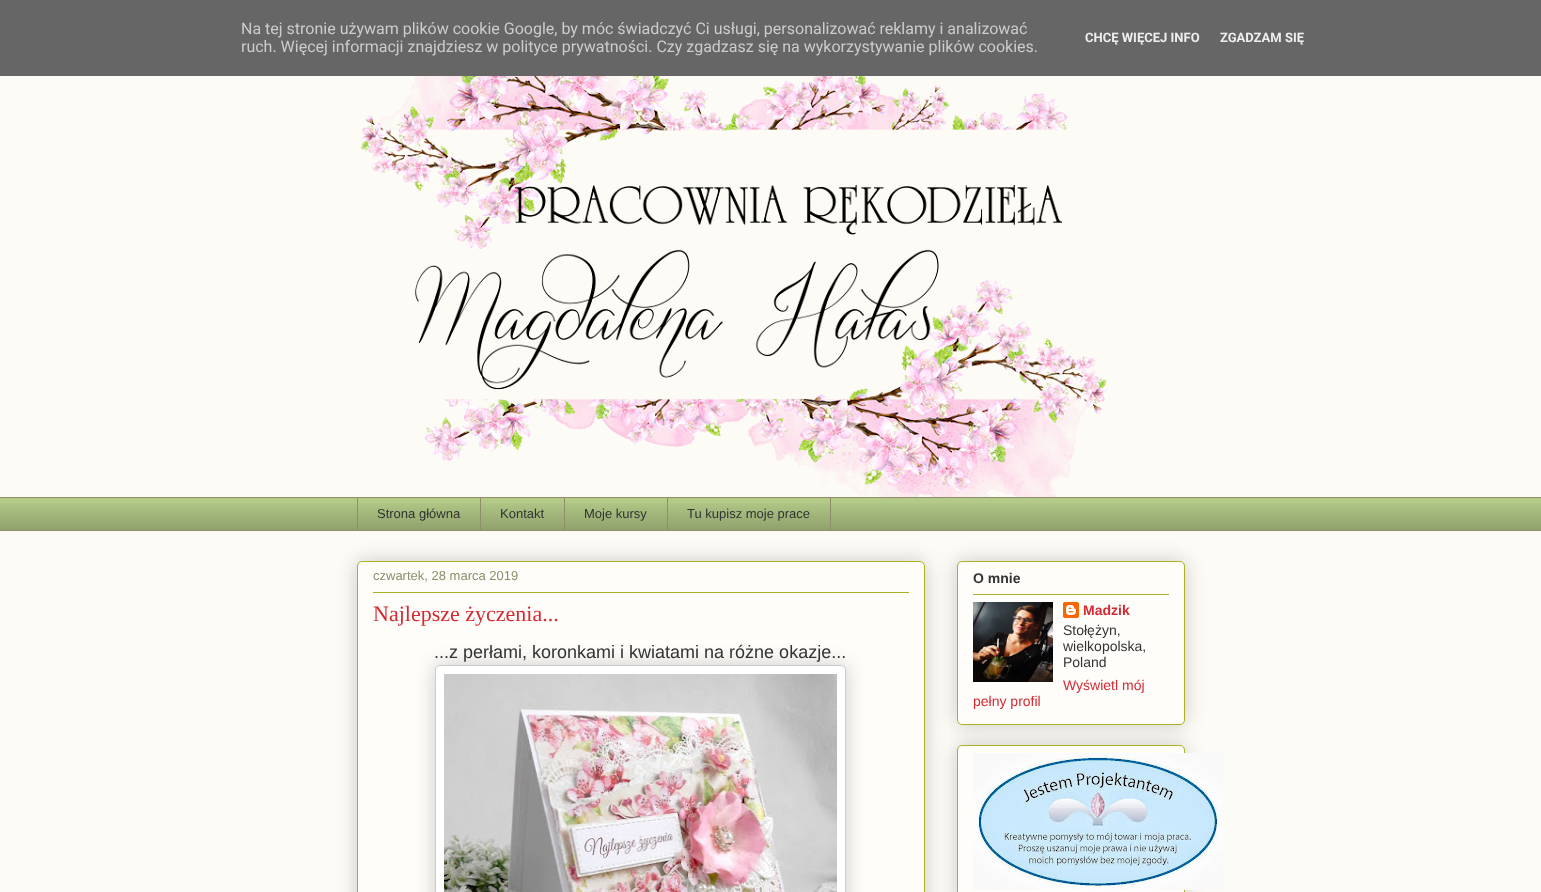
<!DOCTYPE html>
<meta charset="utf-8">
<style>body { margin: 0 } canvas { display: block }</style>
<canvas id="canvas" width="1541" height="892"></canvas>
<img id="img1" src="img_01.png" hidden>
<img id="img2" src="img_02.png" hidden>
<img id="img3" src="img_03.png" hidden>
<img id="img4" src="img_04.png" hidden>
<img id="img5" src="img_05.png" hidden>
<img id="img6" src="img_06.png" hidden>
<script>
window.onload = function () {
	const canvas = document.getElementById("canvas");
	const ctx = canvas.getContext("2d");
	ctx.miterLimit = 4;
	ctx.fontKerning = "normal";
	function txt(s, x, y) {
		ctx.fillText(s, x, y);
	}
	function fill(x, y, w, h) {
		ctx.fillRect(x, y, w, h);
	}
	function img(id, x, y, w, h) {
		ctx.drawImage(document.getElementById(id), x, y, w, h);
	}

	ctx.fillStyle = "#FCFBF5";
	fill(0, 0, 1541, 892);
	ctx.fillStyle = "#666666";
	fill(0, 0, 1541, 76);
	img("img1", 360, 76, 747, 421);
	ctx.fillStyle = "#B3CA88";
	fill(0, 498, 1541, 32);
	img("img2", 0, 503, 1541, 27);
	ctx.fillStyle = "#908D6A";
	fill(0, 497, 1541, 1);
	fill(357, 497, 1, 34);
	fill(480, 497, 1, 34);
	fill(564, 497, 1, 34);
	ctx.strokeStyle = "#908D6A";
	ctx.strokeRect(667.5, 497.5, 163, 33);
	fill(0, 530, 1541, 1);
	ctx.fillStyle = "rgba(0, 0, 0, 0.2)";
	ctx.filter = "blur(10px)";
	ctx.beginPath();
	ctx.roundRect(357, 561, 568, 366, 5);
	ctx.fill();
	ctx.filter = "none";
	ctx.fillStyle = "#FEFDFA";
	ctx.beginPath();
	ctx.roundRect(357.5, 561.5, 567, 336, 4.5);
	ctx.fill();
	ctx.strokeStyle = "#AAB123";
	ctx.stroke();
	ctx.fillStyle = "#AAB123";
	fill(373, 592, 536, 1);
	ctx.fillStyle = "rgba(0, 0, 0, 0.2)";
	ctx.filter = "blur(10px)";
	ctx.beginPath();
	ctx.roundRect(435, 665, 411, 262, 5);
	ctx.fill();
	ctx.filter = "none";
	ctx.fillStyle = "#FFFFFF";
	ctx.beginPath();
	ctx.roundRect(435.5, 665.5, 410, 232, 4.5);
	ctx.fill();
	ctx.strokeStyle = "#CCCCCC";
	ctx.stroke();
	img("img3", 444, 674, 393, 218);
	ctx.fillStyle = "rgba(0, 0, 0, 0.2)";
	ctx.filter = "blur(10px)";
	ctx.beginPath();
	ctx.roundRect(957, 561, 228, 164, 5);
	ctx.fill();
	ctx.filter = "none";
	ctx.fillStyle = "#FEFDFA";
	ctx.beginPath();
	ctx.roundRect(957.5, 561.5, 227, 163, 4.5);
	ctx.fill();
	ctx.strokeStyle = "#AAB123";
	ctx.stroke();
	ctx.fillStyle = "#AAB123";
	fill(973, 594, 196, 1);
	img("img4", 973, 602, 80, 80);
	img("img5", 1063, 602, 16, 16);
	ctx.fillStyle = "rgba(0, 0, 0, 0.2)";
	ctx.filter = "blur(10px)";
	ctx.beginPath();
	ctx.roundRect(957, 745, 228, 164, 5);
	ctx.fill();
	ctx.filter = "none";
	ctx.fillStyle = "#FEFDFA";
	ctx.beginPath();
	ctx.roundRect(957.5, 745.5, 227, 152, 4.5);
	ctx.fill();
	ctx.stroke();
	img("img6", 973, 753, 250, 137);
	ctx.font = "16px Roboto";
	ctx.fillStyle = "#CCCCCC";
	txt("Na tej stronie używam plików cookie Google, by móc świadczyć Ci usługi, personalizować reklamy i analizować", 241, 34);
	txt("ruch. Więcej informacji znajdziesz w polityce prywatności. Czy zgadzasz się na wykorzystywanie plików cookies.", 241, 52);
	ctx.font = "bold 13px Roboto";
	ctx.fillStyle = "#EEEEEE";
	txt("CHCĘ WIĘCEJ INFO", 1085, 42);
	txt("ZGADZAM SIĘ", 1220, 42);
	ctx.font = "13px Liberation Sans";
	ctx.fillStyle = "#333333";
	txt("Strona główna", 377, 518);
	txt("Kontakt", 500, 518);
	txt("Moje kursy", 584, 518);
	txt("Tu kupisz moje prace", 687, 518);
	ctx.fillStyle = "#908D6A";
	txt("czwartek, 28 marca 2019", 373, 580);
	ctx.font = "22px Liberation Serif";
	ctx.fillStyle = "#D52A33";
	txt("Najlepsze życzenia...", 373, 621);
	ctx.font = "18px Liberation Sans";
	ctx.fillStyle = "#333333";
	txt("...z perłami, koronkami i kwiatami na różne okazje...", 434, 658);
	ctx.font = "bold 14px Liberation Sans";
	txt("O mnie", 973, 583);
	ctx.fillStyle = "#D52A33";
	txt("Madzik", 1083, 615);
	ctx.font = "14px Liberation Sans";
	ctx.fillStyle = "#333333";
	txt("Stołężyn,", 1063, 635);
	txt("wielkopolska,", 1063, 651);
	txt("Poland", 1063, 667);
	ctx.fillStyle = "#D52A33";
	txt("Wyświetl mój", 1063, 690);
	txt("pełny profil", 973, 706);
};
</script>
